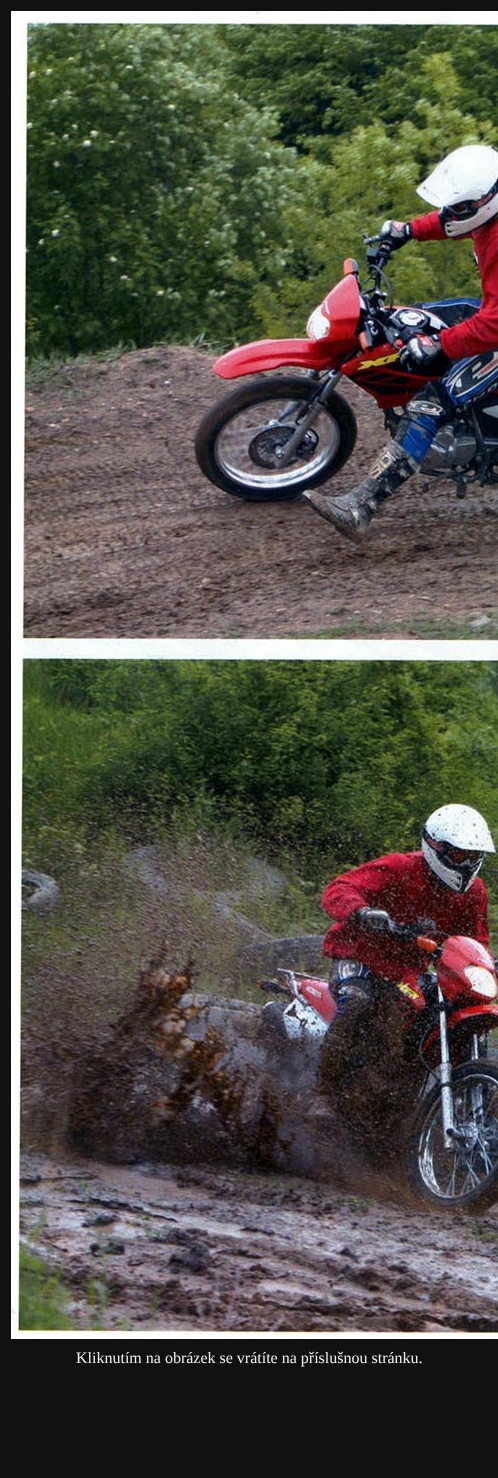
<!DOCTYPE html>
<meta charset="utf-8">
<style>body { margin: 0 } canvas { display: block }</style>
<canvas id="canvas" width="498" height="1478"></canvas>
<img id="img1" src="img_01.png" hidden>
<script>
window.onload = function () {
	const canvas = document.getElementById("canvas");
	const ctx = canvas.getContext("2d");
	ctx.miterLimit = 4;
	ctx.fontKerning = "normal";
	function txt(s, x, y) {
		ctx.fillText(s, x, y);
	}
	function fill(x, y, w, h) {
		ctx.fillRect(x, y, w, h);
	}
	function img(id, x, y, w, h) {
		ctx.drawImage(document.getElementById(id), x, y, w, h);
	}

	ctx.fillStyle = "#111111";
	fill(0, 0, 498, 1478);
	img("img1", 11, 11, 487, 1328);
	ctx.font = "16px Liberation Serif";
	ctx.fillStyle = "#EEEEEE";
	txt("Kliknutím na obrázek se vrátíte na příslušnou stránku.", 76, 1363);
};
</script>
